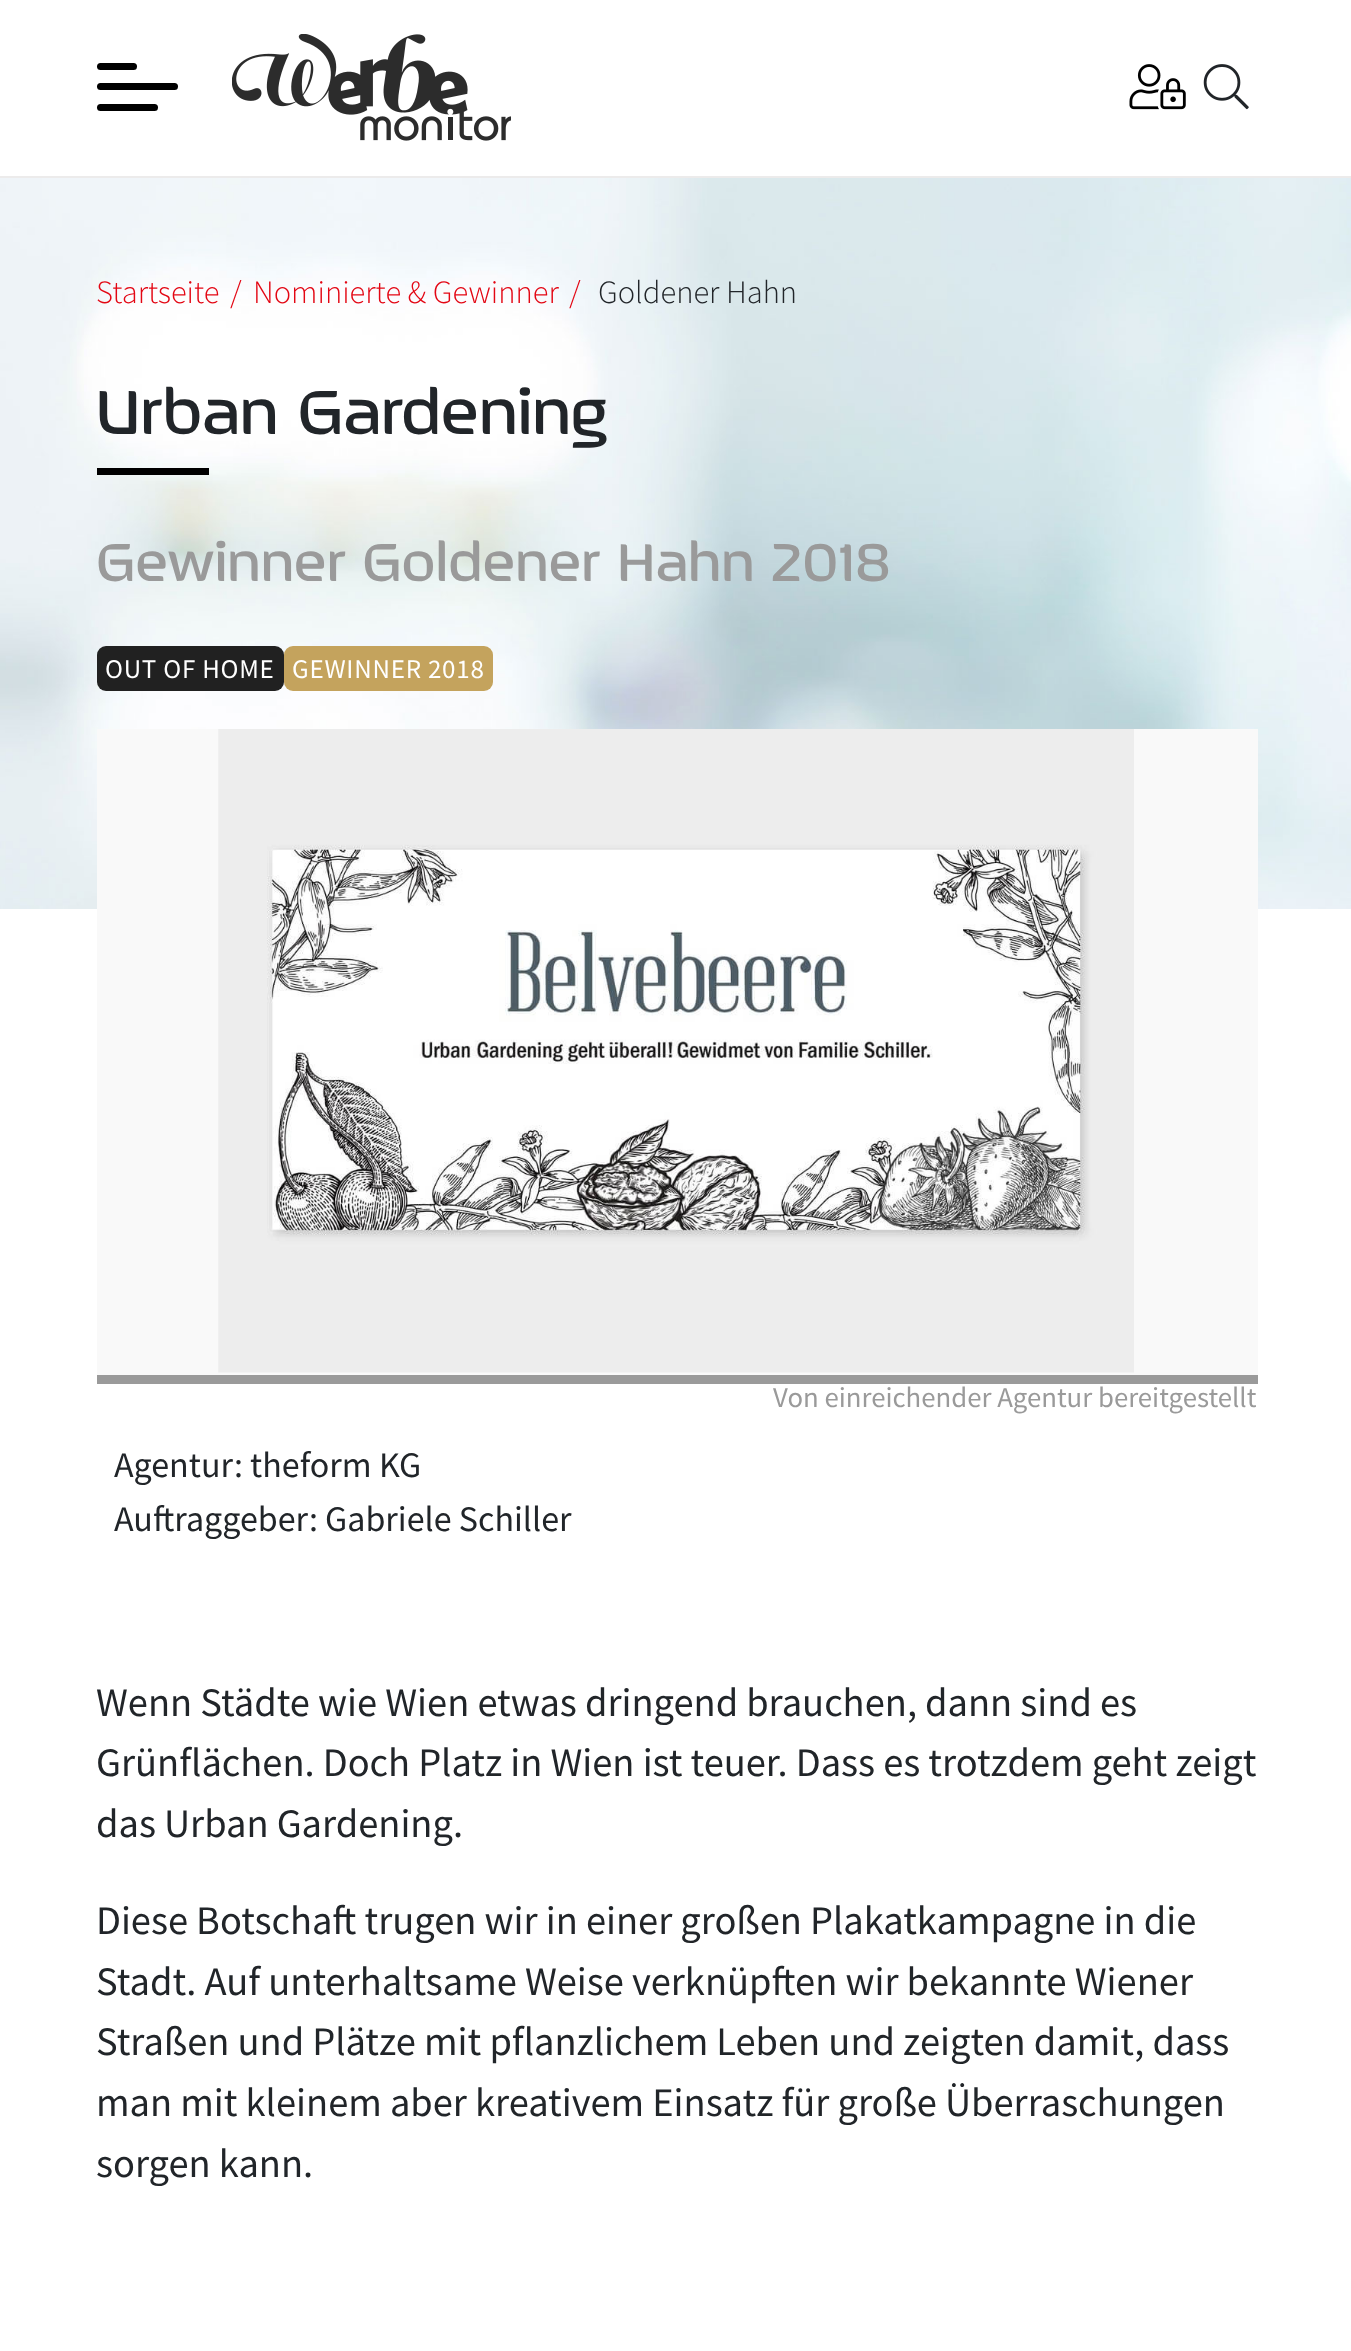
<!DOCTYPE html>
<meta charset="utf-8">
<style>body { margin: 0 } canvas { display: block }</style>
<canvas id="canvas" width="1351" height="2351"></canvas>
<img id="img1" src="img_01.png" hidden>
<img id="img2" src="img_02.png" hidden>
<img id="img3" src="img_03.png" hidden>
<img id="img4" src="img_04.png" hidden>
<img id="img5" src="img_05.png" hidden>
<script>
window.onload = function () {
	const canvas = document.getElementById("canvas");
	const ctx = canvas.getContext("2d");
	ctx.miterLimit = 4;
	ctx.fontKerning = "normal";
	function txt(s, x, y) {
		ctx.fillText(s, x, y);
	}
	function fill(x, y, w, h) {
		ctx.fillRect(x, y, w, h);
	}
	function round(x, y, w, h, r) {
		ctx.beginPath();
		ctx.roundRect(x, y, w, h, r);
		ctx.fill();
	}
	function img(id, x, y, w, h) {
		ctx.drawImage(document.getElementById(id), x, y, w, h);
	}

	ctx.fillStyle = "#FFFFFF";
	fill(0, 0, 1351, 2351);
	ctx.fillStyle = "#ECEBEB";
	fill(0, 176, 1351, 2);
	ctx.fillStyle = "#000000";
	round(97, 63, 40, 7, 3.5);
	round(97, 83, 81, 7, 3.5);
	round(97, 104, 61, 7, 3.5);
	img("img1", 232, 34, 279, 107);
	img("img2", 1129, 64, 57, 46);
	img("img3", 1203, 64, 46, 46);
	img("img4", 0, 178, 1351, 731);
	fill(97, 468, 112, 7);
	ctx.fillStyle = "#212121";
	round(97, 646, 187, 45, 9);
	ctx.fillStyle = "#C4A35D";
	round(284, 646, 209, 45, 9);
	ctx.fillStyle = "#F9F9F9";
	fill(97, 729, 1161, 646);
	ctx.fillStyle = "#9A9A9A";
	fill(97, 1375, 1161, 9);
	img("img5", 218, 729, 916, 644);
	ctx.font = "300 32.5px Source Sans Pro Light";
	ctx.fillStyle = "#E30613";
	txt("Startseite", 96, 303);
	txt("/", 230, 303);
	txt("Nominierte & Gewinner", 253, 303);
	txt("/", 569, 303);
	ctx.fillStyle = "#212529";
	txt("Goldener Hahn", 598, 303);
	ctx.letterSpacing = "0.75px";
	ctx.font = "500 69.75px 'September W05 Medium'";
	txt("Urban Gardening", 96, 434);
	ctx.font = "500 59.9px 'September W05 Medium'";
	ctx.fillStyle = "#9A9A9A";
	txt("Gewinner Goldener Hahn 2018", 96, 581);
	ctx.font = "27px Source Sans Pro";
	ctx.fillStyle = "#FFFFFF";
	txt("OUT OF HOME", 105, 678);
	txt("GEWINNER 2018", 292, 678);
	ctx.letterSpacing = "0px";
	ctx.font = "28.75px Source Sans Pro";
	ctx.fillStyle = "#9A9A9A";
	txt("Von einreichender Agentur bereitgestellt", 773, 1407);
	ctx.font = "36px Source Sans Pro";
	ctx.fillStyle = "#212529";
	txt("Agentur: theform KG", 114, 1477);
	txt("Auftraggeber: Gabriele Schiller", 114, 1531);
	ctx.font = "40.5px Source Sans Pro";
	txt("Wenn Städte wie Wien etwas dringend brauchen, dann sind es", 96, 1716);
	txt("Grünflächen. Doch Platz in Wien ist teuer. Dass es trotzdem geht zeigt", 96, 1776);
	txt("das Urban Gardening.", 96, 1837);
	txt("Diese Botschaft trugen wir in einer großen Plakatkampagne in die", 96, 1934);
	txt("Stadt. Auf unterhaltsame Weise verknüpften wir bekannte Wiener", 96, 1995);
	txt("Straßen und Plätze mit pflanzlichem Leben und zeigten damit, dass", 96, 2055);
	txt("man mit kleinem aber kreativem Einsatz für große Überraschungen", 96, 2116);
	txt("sorgen kann.", 96, 2177);
};
</script>
